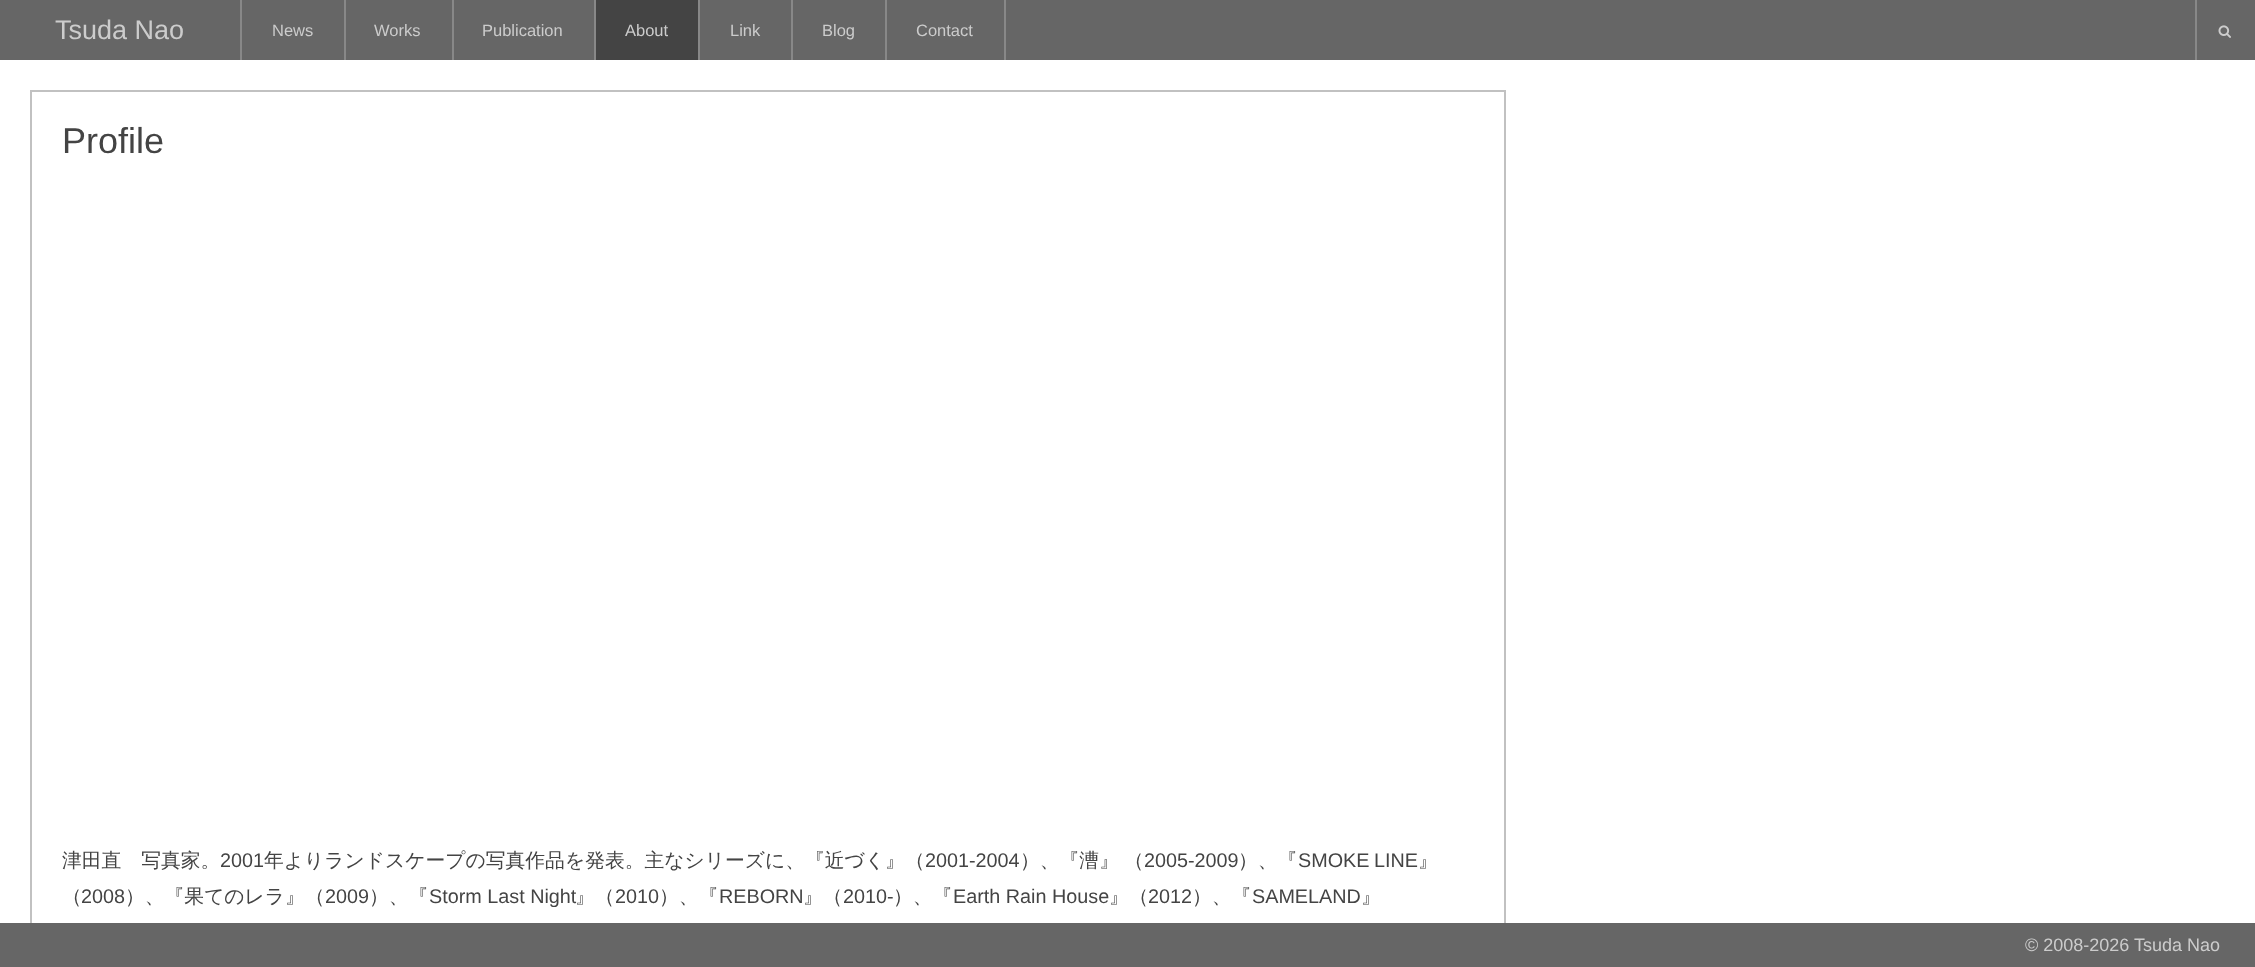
<!DOCTYPE html>
<meta charset="utf-8">
<style>body { margin: 0 } canvas { display: block }</style>
<canvas id="canvas" width="2255" height="967"></canvas>
<img id="img1" src="img_01.png" hidden>
<script>
window.onload = function () {
	const canvas = document.getElementById("canvas");
	const ctx = canvas.getContext("2d");
	ctx.miterLimit = 4;
	ctx.fontKerning = "normal";
	function txt(s, x, y) {
		ctx.fillText(s, x, y);
	}
	function fill(x, y, w, h) {
		ctx.fillRect(x, y, w, h);
	}
	function img(id, x, y, w, h) {
		ctx.drawImage(document.getElementById(id), x, y, w, h);
	}

	ctx.fillStyle = "#FFFFFF";
	fill(0, 0, 2255, 967);
	ctx.fillStyle = "#666666";
	fill(0, 0, 2255, 60);
	ctx.fillStyle = "#888888";
	fill(344, 0, 2, 60);
	fill(240, 0, 2, 60);
	fill(452, 0, 2, 60);
	fill(594, 0, 2, 60);
	ctx.fillStyle = "#444444";
	fill(596, 0, 102, 60);
	ctx.fillStyle = "#888888";
	fill(698, 0, 2, 60);
	fill(791, 0, 2, 60);
	fill(885, 0, 2, 60);
	fill(1004, 0, 2, 60);
	fill(2195, 0, 2, 60);
	img("img1", 2218, 25, 13, 13);
	ctx.strokeStyle = "#C1C1C1";
	ctx.lineWidth = 2;
	ctx.strokeRect(31, 91, 1474, 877);
	ctx.fillStyle = "#666666";
	fill(0, 923, 2255, 44);
	ctx.font = "27px Liberation Sans";
	ctx.fillStyle = "#CCCCCC";
	txt("Tsuda Nao", 55, 39);
	ctx.font = "16.5px Liberation Sans";
	txt("News", 272, 36);
	txt("Works", 374, 36);
	txt("Publication", 482, 36);
	txt("About", 625, 36);
	txt("Link", 730, 36);
	txt("Blog", 822, 36);
	txt("Contact", 916, 36);
	ctx.font = "36px Liberation Sans";
	ctx.fillStyle = "#444444";
	txt("Profile", 62, 153);
	ctx.font = "500 19.8px WenQuanYi Zen Hei";
	txt("津田直　写真家。", 62, 867);
	ctx.font = "19.8px Liberation Sans";
	txt("2001", 220, 867);
	ctx.font = "500 19.8px WenQuanYi Zen Hei";
	txt("年よりランドスケープの写真作品を発表。主なシリーズに、『近づく』（", 264, 867);
	ctx.font = "19.8px Liberation Sans";
	txt("2001-2004", 925, 867);
	ctx.font = "500 19.8px WenQuanYi Zen Hei";
	txt("）、『漕』", 1020, 867);
	txt("（", 1124, 867);
	ctx.font = "19.8px Liberation Sans";
	txt("2005-2009", 1144, 867);
	ctx.font = "500 19.8px WenQuanYi Zen Hei";
	txt("）、『", 1238, 867);
	ctx.wordSpacing = "-1px";
	ctx.font = "19.8px Liberation Sans";
	txt("SMOKE LINE", 1298, 867);
	ctx.wordSpacing = "0px";
	ctx.font = "500 19.8px WenQuanYi Zen Hei";
	txt("』", 1418, 867);
	txt("（", 62, 903);
	ctx.font = "19.8px Liberation Sans";
	txt("2008", 81, 903);
	ctx.font = "500 19.8px WenQuanYi Zen Hei";
	txt("）、『果てのレラ』（", 125, 903);
	ctx.font = "19.8px Liberation Sans";
	txt("2009", 325, 903);
	ctx.font = "500 19.8px WenQuanYi Zen Hei";
	txt("）、『", 369, 903);
	ctx.font = "19.8px Liberation Sans";
	txt("Storm Last Night", 429, 903);
	ctx.font = "500 19.8px WenQuanYi Zen Hei";
	txt("』（", 575, 903);
	ctx.font = "19.8px Liberation Sans";
	txt("2010", 615, 903);
	ctx.font = "500 19.8px WenQuanYi Zen Hei";
	txt("）、『", 659, 903);
	ctx.font = "19.8px Liberation Sans";
	txt("REBORN", 719, 903);
	ctx.font = "500 19.8px WenQuanYi Zen Hei";
	txt("』（", 803, 903);
	ctx.font = "19.8px Liberation Sans";
	txt("2010-", 843, 903);
	ctx.font = "500 19.8px WenQuanYi Zen Hei";
	txt("）、『", 893, 903);
	ctx.font = "19.8px Liberation Sans";
	txt("Earth Rain House", 953, 903);
	ctx.font = "500 19.8px WenQuanYi Zen Hei";
	txt("』（", 1109, 903);
	ctx.font = "19.8px Liberation Sans";
	txt("2012", 1148, 903);
	ctx.font = "500 19.8px WenQuanYi Zen Hei";
	txt("）、『", 1192, 903);
	ctx.font = "19.8px Liberation Sans";
	txt("SAMELAND", 1252, 903);
	ctx.font = "500 19.8px WenQuanYi Zen Hei";
	txt("』", 1361, 903);
	ctx.font = "18px Liberation Sans";
	ctx.fillStyle = "#CCCCCC";
	txt("© 2008-2026", 2025, 951);
	txt("Tsuda Nao", 2134, 951);
};
</script>
